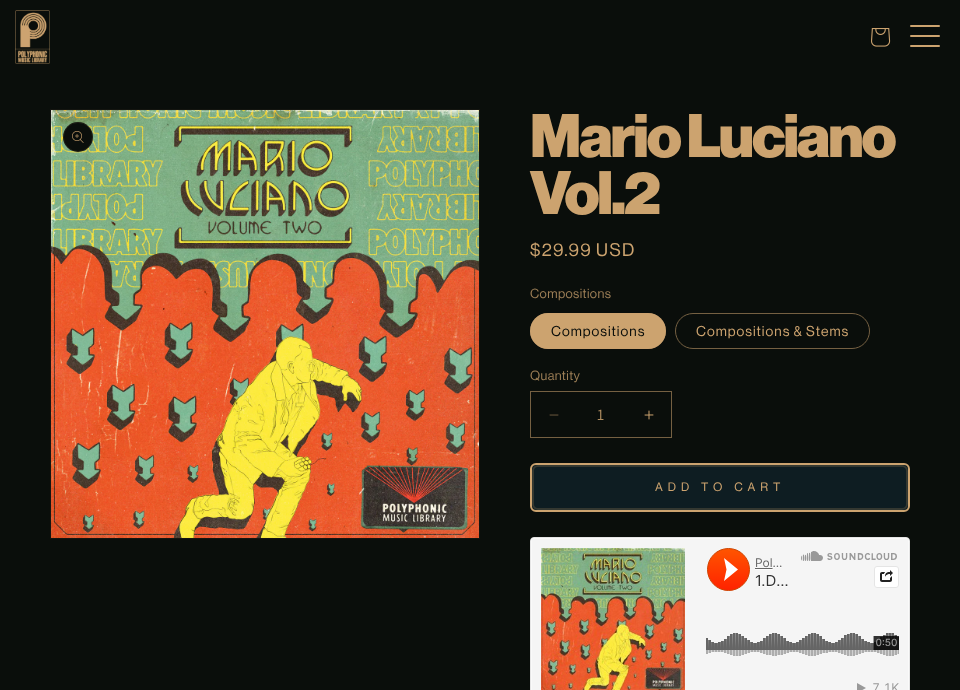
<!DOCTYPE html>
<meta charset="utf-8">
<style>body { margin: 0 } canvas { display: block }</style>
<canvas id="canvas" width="960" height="690"></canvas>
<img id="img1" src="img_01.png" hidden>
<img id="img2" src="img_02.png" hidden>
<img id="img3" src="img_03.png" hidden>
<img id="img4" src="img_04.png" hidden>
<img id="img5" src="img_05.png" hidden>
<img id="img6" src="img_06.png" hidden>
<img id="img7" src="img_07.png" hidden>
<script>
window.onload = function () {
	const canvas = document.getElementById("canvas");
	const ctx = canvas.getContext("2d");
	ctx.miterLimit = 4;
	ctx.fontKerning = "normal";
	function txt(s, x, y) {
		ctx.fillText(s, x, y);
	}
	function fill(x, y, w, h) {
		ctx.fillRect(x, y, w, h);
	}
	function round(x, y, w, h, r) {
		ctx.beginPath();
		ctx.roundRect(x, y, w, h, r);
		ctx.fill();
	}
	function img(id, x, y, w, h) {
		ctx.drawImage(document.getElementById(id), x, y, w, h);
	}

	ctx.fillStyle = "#0A0E0B";
	fill(0, 0, 960, 690);
	img("img1", 15, 10, 35, 54);
	img("img2", 871, 28, 20, 19);
	ctx.fillStyle = "#CCA36F";
	round(910, 25, 30, 2, 1);
	round(910, 35, 30, 2, 1);
	round(910, 45, 30, 2, 1);
	ctx.strokeStyle = "#141510";
	ctx.strokeRect(50.5, 109.5, 429, 429);
	img("img3", 51, 110, 428, 428);
	ctx.fillStyle = "#0A0E0B";
	ctx.beginPath();
	ctx.arc(78, 137, 15, 0, Math.PI * 2);
	ctx.fill();
	ctx.beginPath();
	ctx.arc(78, 137, 14.5, 0, Math.PI * 2);
	ctx.strokeStyle = "rgba(204, 163, 111, 0.1)";
	ctx.stroke();
	img("img4", 72, 131, 12, 12);
	ctx.fillStyle = "#CCA36F";
	round(530, 313, 136, 36, 18);
	ctx.beginPath();
	ctx.roundRect(530.5, 313.5, 135, 35, 17.5);
	ctx.strokeStyle = "rgba(204, 163, 111, 0.55)";
	ctx.stroke();
	ctx.beginPath();
	ctx.roundRect(675.5, 313.5, 194, 35, 17.5);
	ctx.strokeStyle = "#756042";
	ctx.stroke();
	img("img5", 549, 414, 10, 2);
	img("img6", 644, 410, 10, 10);
	ctx.strokeRect(530.5, 391.5, 141, 46);
	ctx.fillStyle = "#0E1D22";
	ctx.beginPath();
	ctx.roundRect(531, 464, 378, 47, 5);
	ctx.fill();
	ctx.strokeStyle = "#CCA36F";
	ctx.lineWidth = 2;
	ctx.stroke();
	ctx.beginPath();
	ctx.roundRect(533, 466, 374, 43, 5);
	ctx.strokeStyle = "#0E1D22";
	ctx.stroke();
	ctx.beginPath();
	ctx.roundRect(533, 466, 374, 43, 5);
	ctx.strokeStyle = "#343831";
	ctx.stroke();
	img("img7", 530, 537, 380, 153);
	ctx.letterSpacing = "-2.1px";
	ctx.font = "900 60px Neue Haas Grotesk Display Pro";
	ctx.fillStyle = "#CCA36F";
	txt("Mario Luciano", 530, 157);
	txt("Vol.2", 530, 214);
	ctx.letterSpacing = "1.25px";
	ctx.font = "500 18px Neue Haas Grotesk Display Pro";
	txt("$29.99 USD", 530, 256);
	ctx.letterSpacing = "0.4px";
	ctx.font = "500 13px Neue Haas Grotesk Display Pro";
	ctx.fillStyle = "#9C7E56";
	txt("Compositions", 530, 298);
	ctx.letterSpacing = "1px";
	ctx.font = "500 14px Neue Haas Grotesk Display Pro";
	ctx.fillStyle = "#0A0E0B";
	txt("Compositions", 551, 336);
	ctx.fillStyle = "#CCA36F";
	txt("Compositions & Stems", 696, 336);
	ctx.letterSpacing = "0.4px";
	ctx.font = "500 13px Neue Haas Grotesk Display Pro";
	ctx.fillStyle = "#9C7E56";
	txt("Quantity", 530, 380);
	ctx.letterSpacing = "0px";
	ctx.font = "16px Assistant";
	ctx.fillStyle = "#AF8D60";
	txt("1", 597, 420);
	ctx.letterSpacing = "5px";
	ctx.font = "500 12px Neue Haas Grotesk Display Pro";
	ctx.fillStyle = "#CCA36F";
	txt("ADD TO CART", 655, 491);
};
</script>
